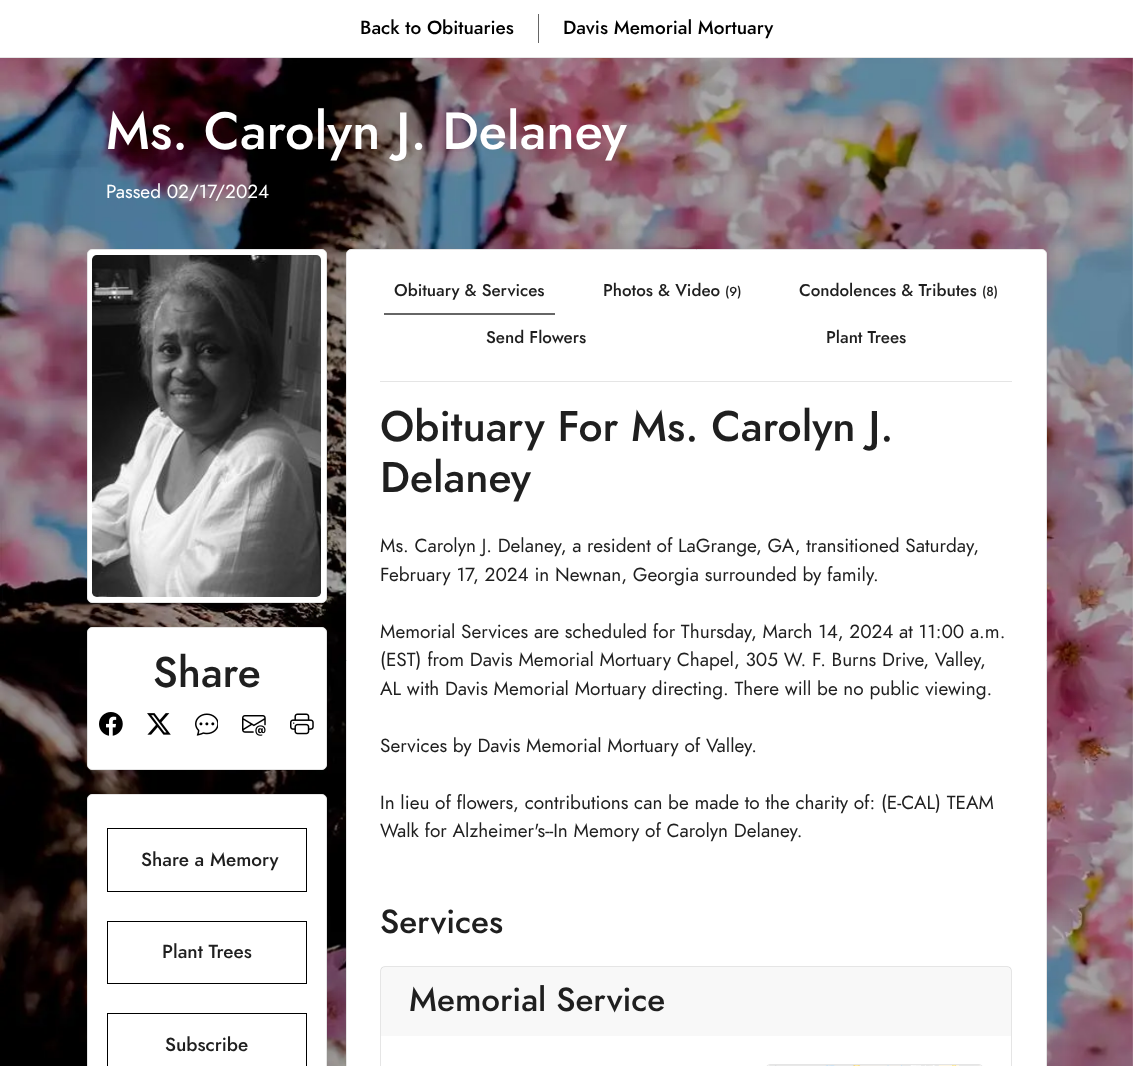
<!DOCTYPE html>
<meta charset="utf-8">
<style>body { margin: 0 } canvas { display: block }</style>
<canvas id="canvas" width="1133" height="1066"></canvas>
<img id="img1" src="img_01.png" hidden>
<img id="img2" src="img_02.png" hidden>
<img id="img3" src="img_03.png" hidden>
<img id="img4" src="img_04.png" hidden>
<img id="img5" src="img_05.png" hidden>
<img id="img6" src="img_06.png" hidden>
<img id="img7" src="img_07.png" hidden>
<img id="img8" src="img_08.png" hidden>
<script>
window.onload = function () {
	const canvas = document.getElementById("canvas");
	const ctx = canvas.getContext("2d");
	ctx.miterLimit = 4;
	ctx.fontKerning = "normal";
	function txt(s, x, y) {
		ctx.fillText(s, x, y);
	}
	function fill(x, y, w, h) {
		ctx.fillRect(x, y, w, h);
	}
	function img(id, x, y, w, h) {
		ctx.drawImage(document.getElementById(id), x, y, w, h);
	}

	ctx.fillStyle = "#FFFFFF";
	fill(0, 0, 1133, 1066);
	img("img1", 0, 58, 1133, 1008);
	ctx.fillStyle = "#E5E5E5";
	fill(0, 57, 1133, 1);
	ctx.fillStyle = "#666666";
	fill(538, 14, 1, 29);
	ctx.fillStyle = "#FFFFFF";
	ctx.beginPath();
	ctx.roundRect(87.5, 249.5, 239, 353, 4.5);
	ctx.fill();
	ctx.strokeStyle = "#E5E5E5";
	ctx.stroke();
	img("img2", 92, 255, 229, 342);
	ctx.beginPath();
	ctx.roundRect(87.5, 627.5, 239, 142, 4.5);
	ctx.fill();
	ctx.stroke();
	img("img3", 99, 712, 24, 24);
	img("img4", 147, 713, 24, 22);
	img("img5", 195, 713, 23, 23);
	img("img6", 242, 715, 24, 21);
	img("img7", 290, 713, 24, 22);
	ctx.beginPath();
	ctx.roundRect(87.5, 794.5, 239, 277, 4.5);
	ctx.fill();
	ctx.stroke();
	ctx.strokeStyle = "#000000";
	ctx.strokeRect(107.5, 828.5, 199, 63);
	ctx.strokeRect(107.5, 921.5, 199, 62);
	ctx.strokeRect(107.5, 1013.5, 199, 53);
	ctx.beginPath();
	ctx.roundRect(346.5, 249.5, 700, 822, 4.5);
	ctx.fill();
	ctx.strokeStyle = "#E5E5E5";
	ctx.stroke();
	ctx.fillStyle = "#666666";
	fill(384, 313, 171, 2);
	ctx.fillStyle = "#E5E5E5";
	fill(380, 381, 632, 1);
	ctx.beginPath();
	ctx.roundRect(380.5, 966.5, 631, 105, 4.5);
	ctx.stroke();
	ctx.fillStyle = "rgba(18, 18, 18, 0.03)";
	fill(381, 967, 630, 69);
	ctx.beginPath();
	ctx.roundRect(766.5, 1064.5, 216, 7, 4.5);
	ctx.stroke();
	img("img8", 769, 1065, 211, 1);
	ctx.font = "500 19px Jost";
	ctx.fillStyle = "#000000";
	txt("Back to Obituaries", 360, 34);
	txt("Davis Memorial Mortuary", 563, 34);
	ctx.font = "500 52.25px Jost";
	ctx.fillStyle = "#FFFFFF";
	txt("Ms. Carolyn J. Delaney", 106, 149);
	ctx.font = "19px Jost";
	txt("Passed 02/17/2024", 106, 198);
	ctx.font = "500 42.75px Jost";
	ctx.fillStyle = "#1F1F1F";
	txt("Share", 153, 687);
	ctx.font = "500 19px Jost";
	txt("Share a Memory", 141, 866);
	txt("Plant Trees", 162, 958);
	txt("Subscribe", 165, 1051);
	ctx.font = "500 17px Jost";
	txt("Obituary & Services", 394, 296);
	txt("Photos & Video", 603, 296);
	ctx.font = "500 13px Jost";
	txt("(9)", 725, 296);
	ctx.font = "500 17px Jost";
	txt("Condolences & Tributes", 799, 296);
	ctx.font = "500 13px Jost";
	txt("(8)", 982, 296);
	ctx.font = "500 17px Jost";
	txt("Send Flowers", 486, 343);
	txt("Plant Trees", 826, 343);
	ctx.font = "500 42.75px Jost";
	txt("Obituary For Ms. Carolyn J.", 380, 441);
	txt("Delaney", 380, 492);
	ctx.font = "19px Jost";
	txt("Ms. Carolyn J. Delaney, a resident of LaGrange, GA, transitioned Saturday,", 380, 552);
	txt("February 17, 2024 in Newnan, Georgia surrounded by family.", 380, 581);
	txt("Memorial Services are scheduled for Thursday, March 14, 2024 at 11:00 a.m.", 380, 638);
	txt("(EST) from Davis Memorial Mortuary Chapel, 305 W. F. Burns Drive, Valley,", 380, 666);
	txt("AL with Davis Memorial Mortuary directing. There will be no public viewing.", 380, 695);
	txt("Services by Davis Memorial Mortuary of Valley.", 380, 752);
	txt("In lieu of flowers, contributions can be made to the charity of: (E-CAL) TEAM", 380, 809);
	txt("Walk for Alzheimer's--In Memory of Carolyn Delaney.", 380, 837);
	ctx.font = "500 33.25px Jost";
	txt("Services", 380, 933);
	txt("Memorial Service", 409, 1011);
};
</script>
